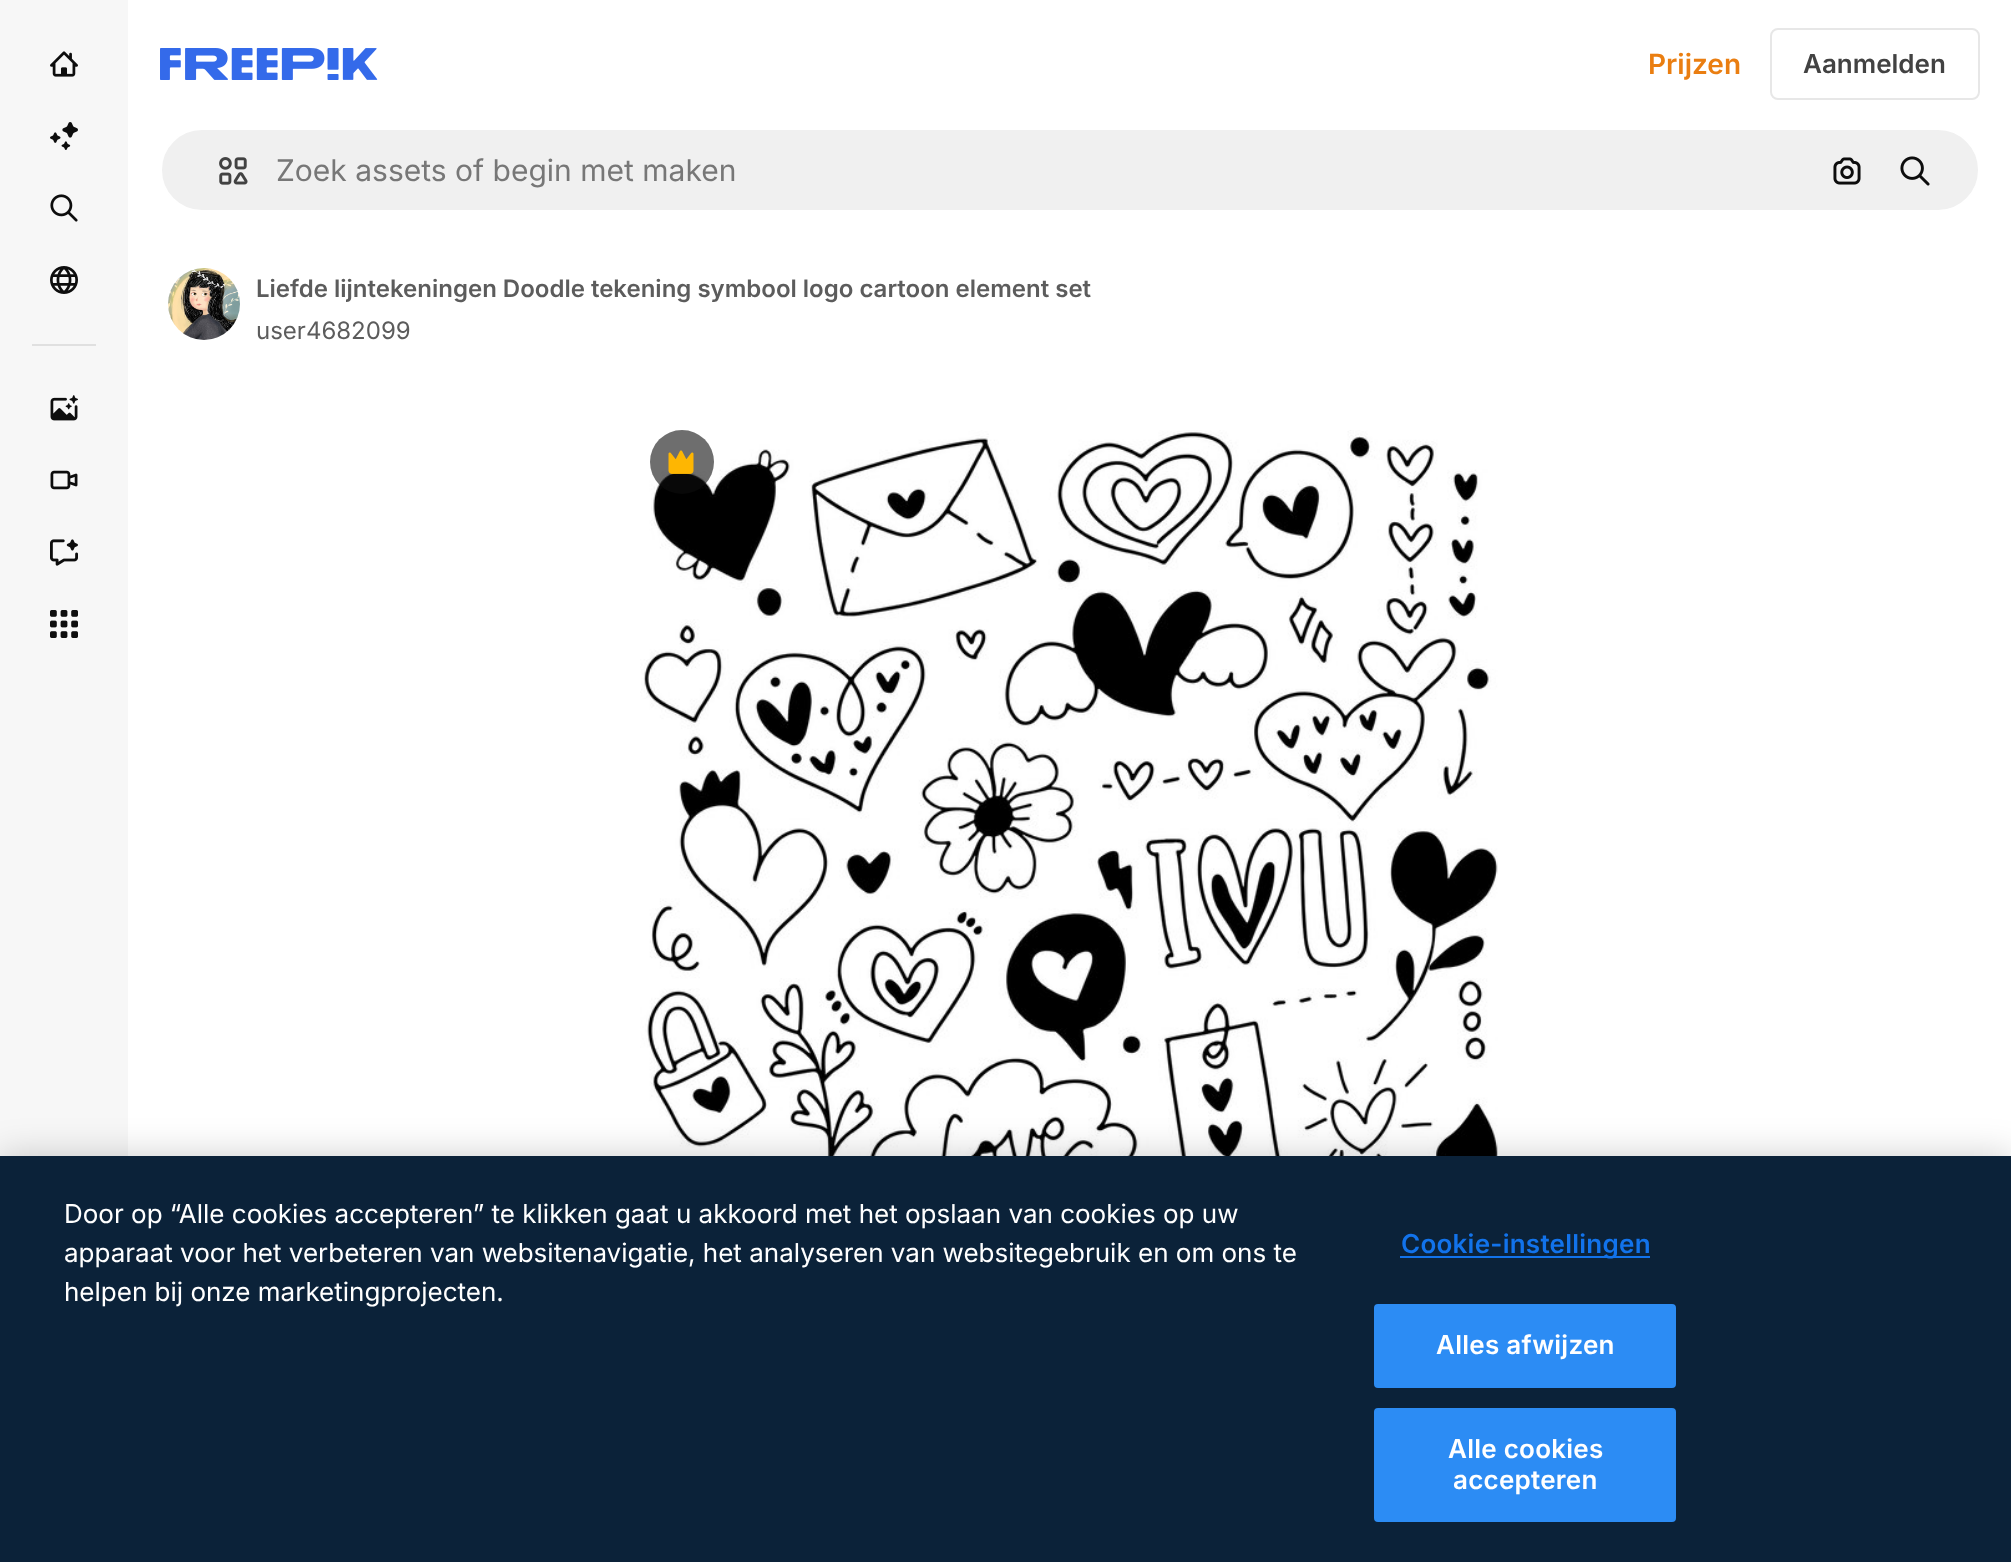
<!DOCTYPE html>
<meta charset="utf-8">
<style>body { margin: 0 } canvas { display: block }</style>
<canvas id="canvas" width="2011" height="1562"></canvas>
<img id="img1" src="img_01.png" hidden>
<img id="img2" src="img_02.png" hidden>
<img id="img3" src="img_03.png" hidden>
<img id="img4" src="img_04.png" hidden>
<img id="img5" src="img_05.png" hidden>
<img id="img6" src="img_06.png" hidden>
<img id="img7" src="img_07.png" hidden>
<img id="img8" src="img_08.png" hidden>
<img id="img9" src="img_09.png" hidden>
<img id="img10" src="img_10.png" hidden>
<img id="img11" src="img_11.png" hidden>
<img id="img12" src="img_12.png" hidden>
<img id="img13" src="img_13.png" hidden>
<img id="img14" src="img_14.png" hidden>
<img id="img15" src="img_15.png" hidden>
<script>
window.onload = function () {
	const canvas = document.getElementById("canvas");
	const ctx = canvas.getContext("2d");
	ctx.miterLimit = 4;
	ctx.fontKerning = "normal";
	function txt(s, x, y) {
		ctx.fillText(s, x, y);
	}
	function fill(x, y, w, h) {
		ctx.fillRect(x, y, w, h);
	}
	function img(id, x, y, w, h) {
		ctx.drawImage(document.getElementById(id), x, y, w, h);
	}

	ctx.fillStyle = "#FFFFFF";
	fill(0, 0, 2011, 1562);
	ctx.fillStyle = "#F7F7F7";
	fill(0, 0, 128, 1156);
	img("img1", 50, 51, 28, 26);
	img("img2", 50, 122, 28, 28);
	img("img3", 50, 194, 28, 28);
	img("img4", 50, 266, 28, 28);
	ctx.fillStyle = "#E0E0E0";
	fill(32, 344, 64, 2);
	img("img5", 50, 395, 28, 26);
	img("img6", 50, 470, 28, 20);
	img("img7", 50, 539, 28, 27);
	img("img8", 50, 610, 28, 28);
	img("img9", 160, 48, 218, 32);
	ctx.beginPath();
	ctx.roundRect(1771, 29, 208, 70, 7);
	ctx.strokeStyle = "#E7E7E7";
	ctx.lineWidth = 2;
	ctx.stroke();
	ctx.fillStyle = "#F0F0F0";
	ctx.beginPath();
	ctx.roundRect(161, 129, 1818, 82, 41);
	ctx.fill();
	ctx.strokeStyle = "#FFFFFF";
	ctx.stroke();
	img("img10", 219, 157, 29, 28);
	img("img11", 1833, 157, 28, 28);
	img("img12", 1900, 156, 30, 30);
	img("img13", 168, 268, 72, 72);
	img("img14", 640, 430, 858, 726);
	ctx.fillStyle = "rgba(13, 13, 13, 0.6)";
	ctx.beginPath();
	ctx.arc(682, 462, 32, 0, Math.PI * 2);
	ctx.fill();
	img("img15", 668, 450, 26, 24);
	ctx.fillStyle = "rgba(0, 0, 0, 0.2)";
	ctx.filter = "blur(18px)";
	ctx.beginPath();
	ctx.rect(0, 1156, 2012, 406);
	ctx.fill();
	ctx.filter = "none";
	ctx.fillStyle = "#0B2239";
	fill(0, 1156, 2011, 406);
	ctx.fillStyle = "#1273EB";
	fill(1400, 1256, 250, 2);
	ctx.fillStyle = "#2C8CF4";
	ctx.beginPath();
	ctx.roundRect(1375, 1305, 300, 82, 3);
	ctx.fill();
	ctx.strokeStyle = "#2C8CF4";
	ctx.stroke();
	ctx.beginPath();
	ctx.roundRect(1375, 1409, 300, 112, 3);
	ctx.fill();
	ctx.stroke();
	ctx.font = "600 28px Inter";
	ctx.fillStyle = "#EA7E11";
	txt("Prijzen", 1648, 74);
	ctx.font = "600 26px Inter";
	ctx.fillStyle = "#424242";
	txt("Aanmelden", 1803, 73);
	ctx.font = "30px Inter";
	ctx.fillStyle = "#777777";
	txt("Zoek assets of begin met maken", 276, 181);
	ctx.font = "600 24px Inter";
	ctx.fillStyle = "#5C5C5C";
	txt("Liefde lijntekeningen Doodle tekening symbool logo cartoon element set", 256, 297);
	ctx.font = "24px Inter";
	txt("user4682099", 256, 339);
	ctx.font = "26px Inter";
	ctx.fillStyle = "#FFFFFF";
	txt("Door op “Alle cookies accepteren” te klikken gaat u akkoord met het opslaan van cookies op uw", 64, 1223);
	txt("apparaat voor het verbeteren van websitenavigatie, het analyseren van websitegebruik en om ons te", 64, 1262);
	txt("helpen bij onze marketingprojecten.", 64, 1301);
	ctx.letterSpacing = "0.25px";
	ctx.font = "600 26px Inter";
	ctx.fillStyle = "#1273EB";
	txt("Cookie-instellingen", 1401, 1253);
	ctx.fillStyle = "#FFFFFF";
	txt("Alles afwijzen", 1436, 1354);
	txt("Alle cookies", 1448, 1458);
	txt("accepteren", 1453, 1489);
};
</script>
